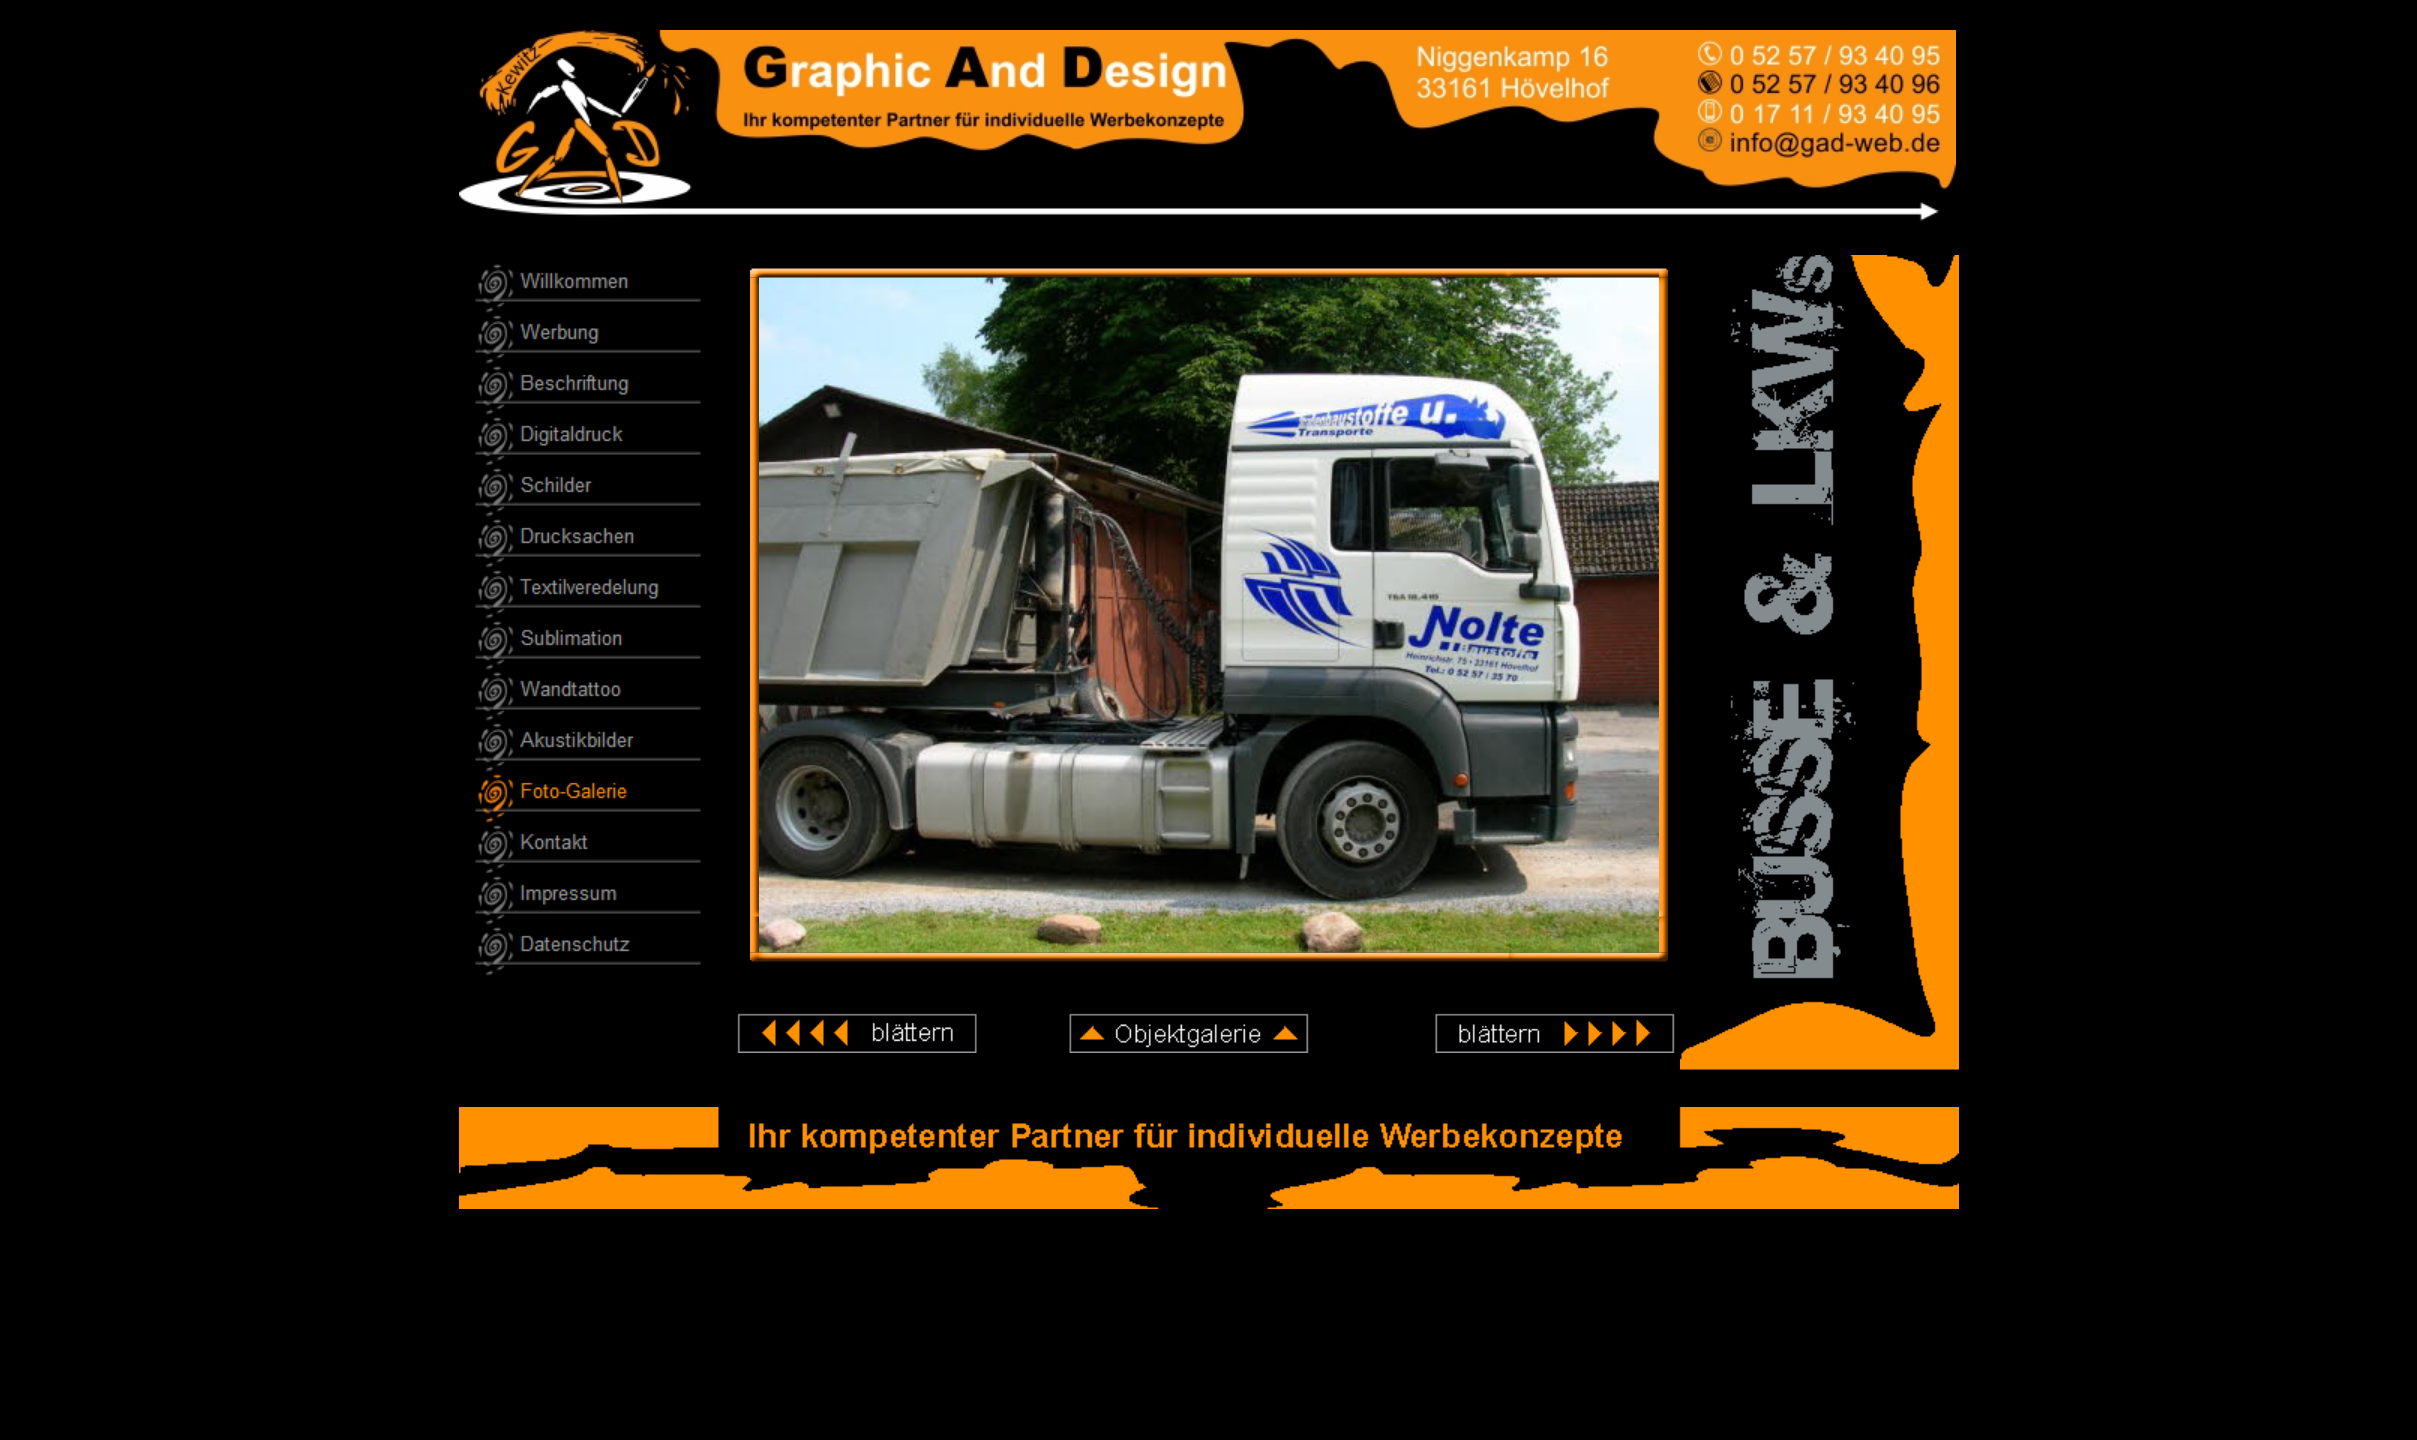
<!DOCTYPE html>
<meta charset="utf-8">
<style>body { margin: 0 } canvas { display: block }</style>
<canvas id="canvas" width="2417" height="1440"></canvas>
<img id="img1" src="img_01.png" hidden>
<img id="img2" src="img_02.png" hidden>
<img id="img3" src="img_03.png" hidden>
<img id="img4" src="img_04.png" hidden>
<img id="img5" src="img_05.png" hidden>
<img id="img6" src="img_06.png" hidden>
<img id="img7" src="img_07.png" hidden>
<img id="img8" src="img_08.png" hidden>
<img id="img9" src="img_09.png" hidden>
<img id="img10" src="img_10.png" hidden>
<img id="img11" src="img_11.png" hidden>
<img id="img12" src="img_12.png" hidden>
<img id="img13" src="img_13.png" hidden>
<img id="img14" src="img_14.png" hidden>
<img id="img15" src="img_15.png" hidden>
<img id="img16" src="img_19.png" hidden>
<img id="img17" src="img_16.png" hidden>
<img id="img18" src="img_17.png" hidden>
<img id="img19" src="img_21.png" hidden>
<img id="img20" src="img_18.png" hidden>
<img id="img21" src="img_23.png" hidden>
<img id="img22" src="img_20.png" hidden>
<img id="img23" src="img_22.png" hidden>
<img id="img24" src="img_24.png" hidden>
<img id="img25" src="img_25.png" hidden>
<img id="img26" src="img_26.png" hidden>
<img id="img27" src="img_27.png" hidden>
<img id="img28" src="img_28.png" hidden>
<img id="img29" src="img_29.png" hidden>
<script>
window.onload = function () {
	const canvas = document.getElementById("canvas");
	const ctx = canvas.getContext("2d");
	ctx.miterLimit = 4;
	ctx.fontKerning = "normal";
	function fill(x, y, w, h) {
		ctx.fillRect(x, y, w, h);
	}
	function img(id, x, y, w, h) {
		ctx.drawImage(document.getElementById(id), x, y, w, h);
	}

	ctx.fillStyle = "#000000";
	fill(0, 0, 2417, 1440);
	img("img1", 459, 30, 1497, 191);
	img("img2", 475, 264, 226, 49);
	img("img3", 475, 315, 226, 49);
	img("img4", 475, 366, 226, 49);
	img("img5", 475, 417, 226, 49);
	img("img6", 475, 468, 226, 49);
	img("img7", 475, 519, 226, 49);
	img("img8", 475, 570, 226, 49);
	img("img9", 475, 621, 226, 49);
	img("img10", 475, 672, 226, 49);
	img("img11", 475, 723, 226, 49);
	img("img12", 475, 773, 226, 50);
	img("img13", 475, 825, 226, 49);
	img("img14", 475, 876, 226, 49);
	img("img15", 475, 927, 226, 49);
	img("img16", 750, 277, 9, 676);
	img("img17", 750, 268, 9, 10);
	img("img18", 759, 268, 900, 10);
	img("img19", 1659, 277, 9, 676);
	img("img20", 1659, 268, 9, 10);
	img("img21", 759, 952, 900, 10);
	img("img22", 759, 277, 900, 676);
	img("img23", 750, 952, 9, 10);
	img("img24", 1659, 952, 9, 10);
	img("img25", 1680, 255, 279, 815);
	img("img26", 737, 1013, 240, 40);
	img("img27", 1069, 1013, 240, 40);
	img("img28", 1435, 1013, 240, 40);
	img("img29", 459, 1107, 1500, 102);
};
</script>
